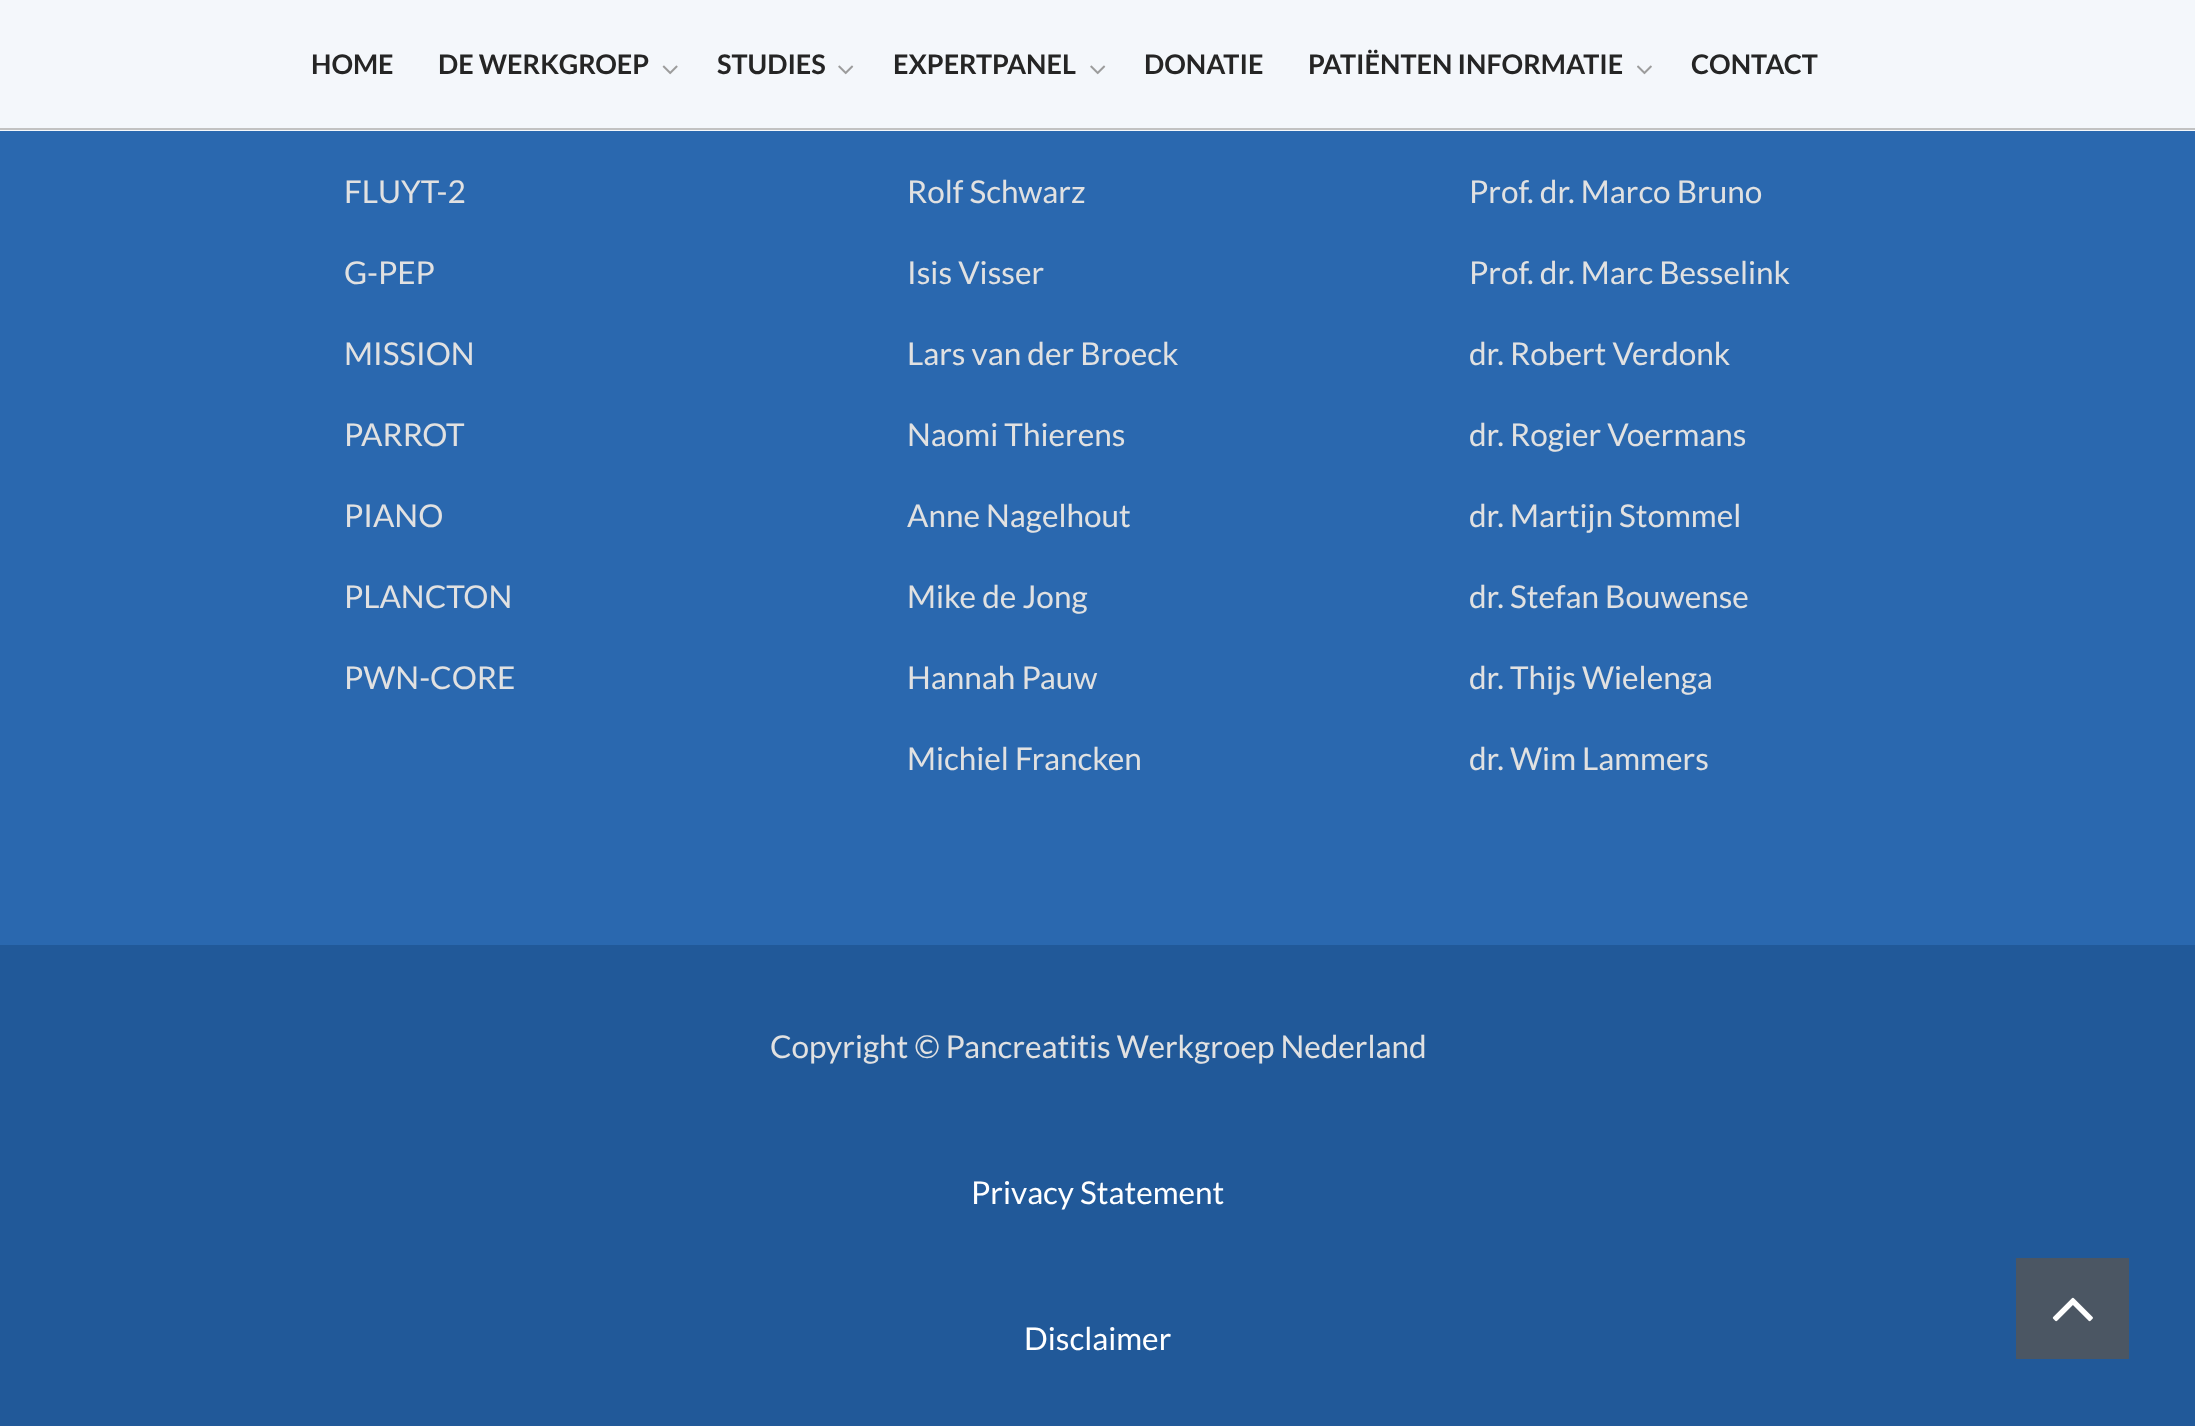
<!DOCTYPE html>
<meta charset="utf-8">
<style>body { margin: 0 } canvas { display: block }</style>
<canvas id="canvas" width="2195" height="1426"></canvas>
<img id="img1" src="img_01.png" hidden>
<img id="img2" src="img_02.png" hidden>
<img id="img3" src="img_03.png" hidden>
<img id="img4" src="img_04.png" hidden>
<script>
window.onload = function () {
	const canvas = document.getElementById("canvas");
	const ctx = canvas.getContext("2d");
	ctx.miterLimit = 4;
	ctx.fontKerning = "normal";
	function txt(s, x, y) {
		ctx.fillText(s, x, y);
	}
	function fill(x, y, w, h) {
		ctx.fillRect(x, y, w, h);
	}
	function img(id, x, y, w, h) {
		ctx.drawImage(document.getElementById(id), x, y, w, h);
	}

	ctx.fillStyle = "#2A68AF";
	fill(0, 0, 2195, 1426);
	ctx.fillStyle = "#F4F7FB";
	fill(0, 0, 2195, 131);
	ctx.fillStyle = "#C2C2C2";
	fill(0, 128, 2195, 2);
	img("img1", 662, 65, 16, 10);
	img("img2", 838, 65, 16, 10);
	img("img2", 1090, 65, 16, 10);
	img("img3", 1637, 65, 15, 10);
	ctx.fillStyle = "#215999";
	fill(0, 945, 2195, 481);
	ctx.fillStyle = "#4B5663";
	fill(2016, 1258, 113, 101);
	img("img4", 2052, 1297, 41, 25);
	ctx.font = "bold 27px Lato";
	ctx.fillStyle = "#252525";
	txt("HOME", 311, 74);
	txt("DE WERKGROEP", 438, 74);
	txt("STUDIES", 717, 74);
	txt("EXPERTPANEL", 893, 74);
	txt("DONATIE", 1144, 74);
	txt("PATIËNTEN INFORMATIE", 1308, 74);
	txt("CONTACT", 1691, 74);
	ctx.font = "31.5px Lato";
	ctx.fillStyle = "#E1E1E1";
	txt("FLUYT-2", 344, 203);
	txt("G-PEP", 344, 284);
	txt("MISSION", 344, 365);
	txt("PARROT", 344, 446);
	txt("PIANO", 344, 527);
	txt("PLANCTON", 344, 608);
	txt("PWN-CORE", 344, 689);
	txt("Rolf Schwarz", 907, 203);
	txt("Isis Visser", 907, 284);
	txt("Lars van der Broeck", 907, 365);
	txt("Naomi Thierens", 907, 446);
	txt("Anne Nagelhout", 907, 527);
	txt("Mike de Jong", 907, 608);
	txt("Hannah Pauw", 907, 689);
	txt("Michiel Francken", 907, 770);
	txt("Prof. dr. Marco Bruno", 1469, 203);
	txt("Prof. dr. Marc Besselink", 1469, 284);
	txt("dr. Robert Verdonk", 1469, 365);
	txt("dr. Rogier Voermans", 1469, 446);
	txt("dr. Martijn Stommel", 1469, 527);
	txt("dr. Stefan Bouwense", 1469, 608);
	txt("dr. Thijs Wielenga", 1469, 689);
	txt("dr. Wim Lammers", 1469, 770);
	txt("Copyright © Pancreatitis Werkgroep Nederland", 770, 1058);
	ctx.fillStyle = "#FFFFFF";
	txt("Privacy Statement", 971, 1204);
	txt("Disclaimer", 1024, 1350);
};
</script>
